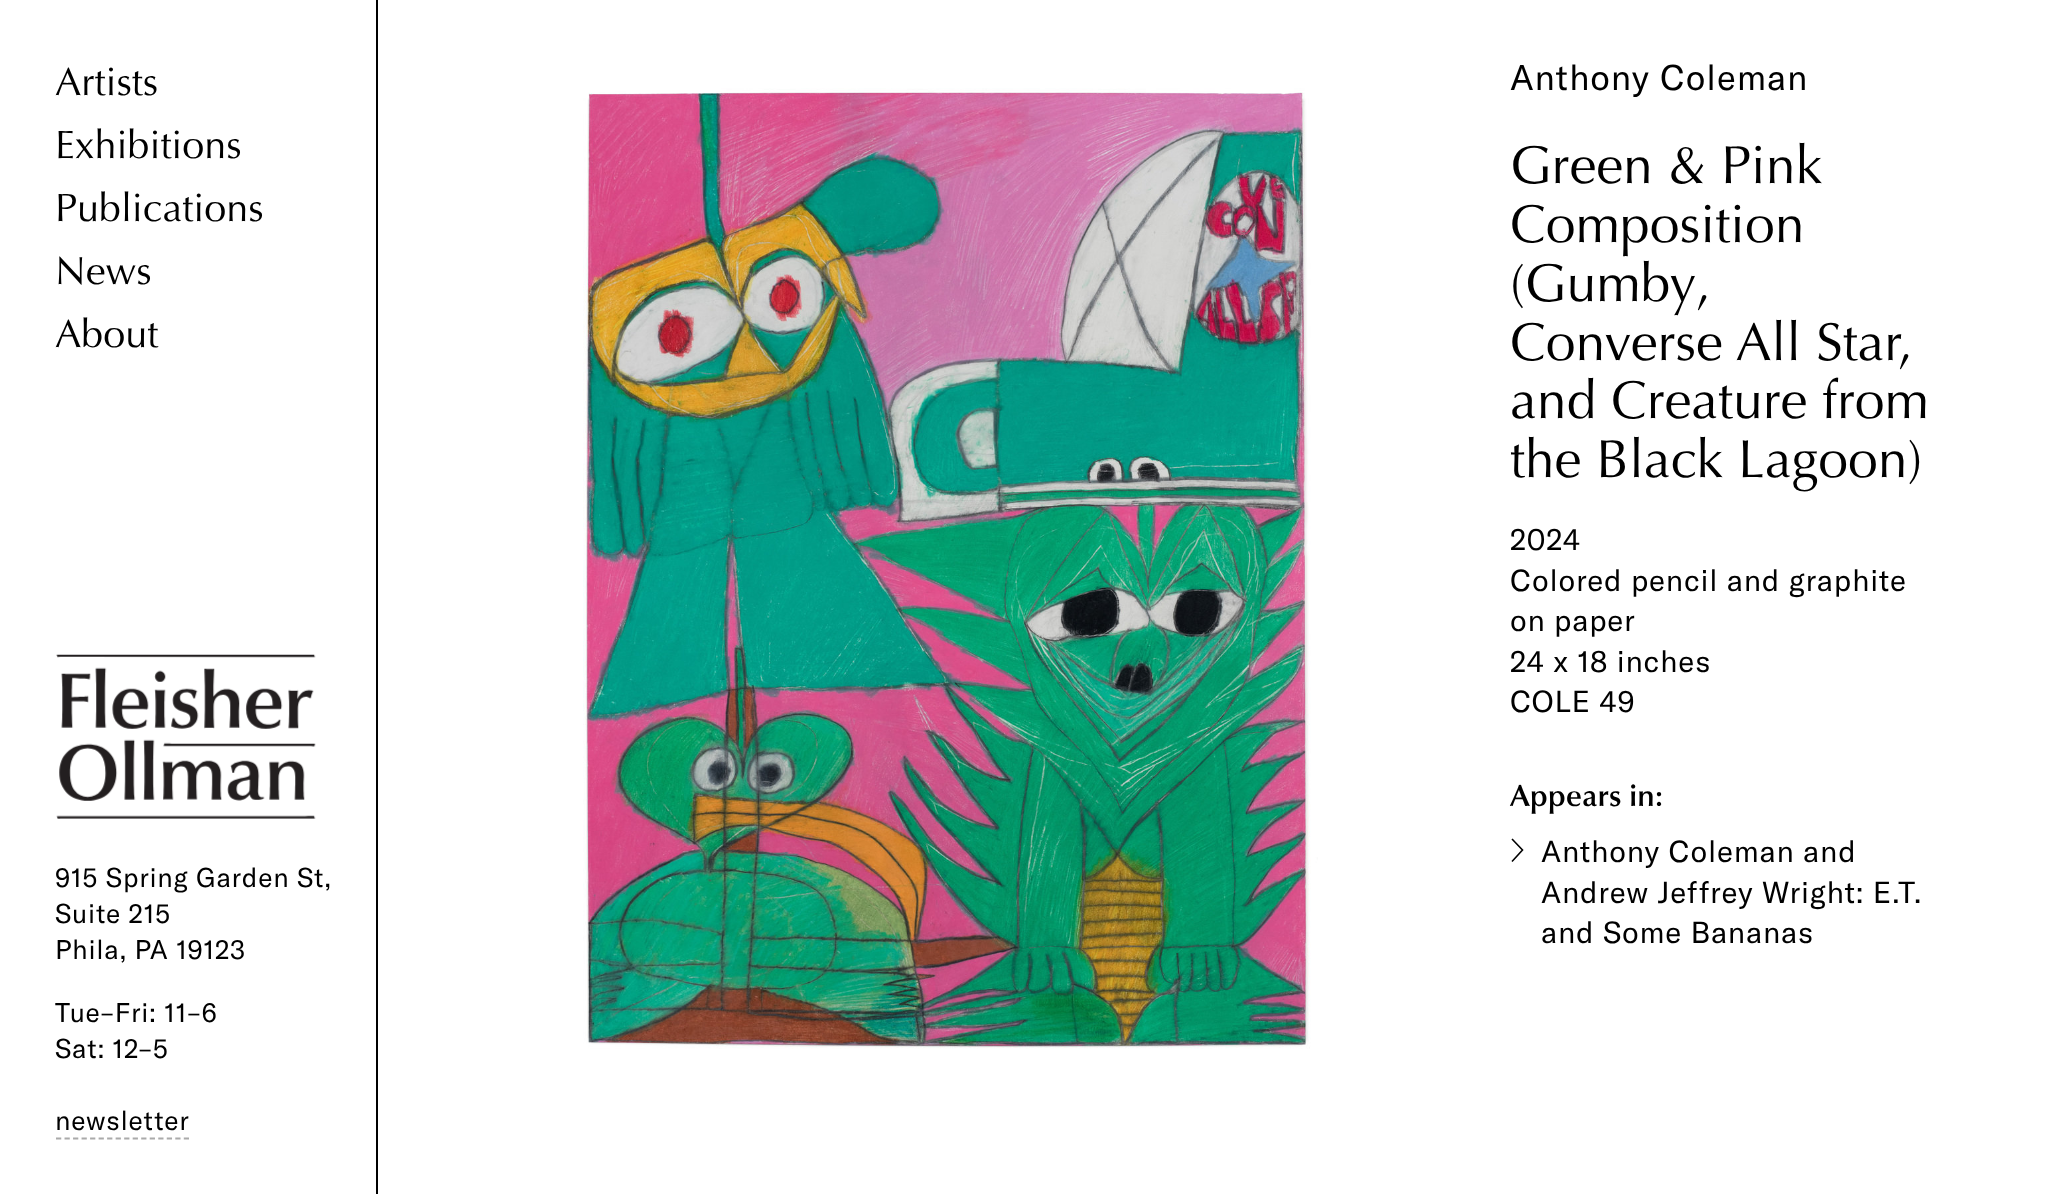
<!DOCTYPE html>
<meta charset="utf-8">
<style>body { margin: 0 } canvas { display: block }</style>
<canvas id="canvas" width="2049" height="1194"></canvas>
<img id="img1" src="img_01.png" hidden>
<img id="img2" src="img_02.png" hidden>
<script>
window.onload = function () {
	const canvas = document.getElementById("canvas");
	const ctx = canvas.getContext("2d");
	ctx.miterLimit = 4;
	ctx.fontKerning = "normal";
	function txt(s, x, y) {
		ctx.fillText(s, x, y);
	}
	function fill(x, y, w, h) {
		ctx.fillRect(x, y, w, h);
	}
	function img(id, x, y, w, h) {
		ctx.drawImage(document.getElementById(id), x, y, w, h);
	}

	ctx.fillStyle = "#FFFFFF";
	fill(0, 0, 2049, 1194);
	ctx.fillStyle = "#000000";
	fill(376, 0, 2, 1194);
	img("img1", 56, 654, 260, 165);
	ctx.beginPath();
	ctx.moveTo(56, 1138.5);
	ctx.lineTo(189, 1138.5);
	ctx.strokeStyle = "#AAAAAA";
	ctx.lineWidth = 1.8;
	ctx.setLineDash([5.25, 3.27]);
	ctx.stroke();
	img("img2", 583, 88, 735, 961);
	ctx.beginPath();
	ctx.moveTo(1512, 839);
	ctx.lineTo(1522.5, 850);
	ctx.lineTo(1512, 861.5);
	ctx.strokeStyle = "#000000";
	ctx.lineWidth = 1.6;
	ctx.setLineDash([]);
	ctx.stroke();
	ctx.font = "39.5px Optima";
	txt("Artists", 55, 95);
	txt("Exhibitions", 55, 158);
	txt("Publications", 55, 221);
	txt("News", 55, 284);
	txt("About", 55, 347);
	ctx.letterSpacing = "0.7px";
	ctx.font = "26.75px GT America";
	txt("915 Spring Garden St,", 55, 887);
	txt("Suite 215", 55, 923);
	txt("Phila, PA 19123", 55, 959);
	txt("Tue–Fri: 11–6", 55, 1022);
	txt("Sat: 12–5", 55, 1058);
	txt("newsletter", 55, 1130);
	ctx.letterSpacing = "0.9px";
	ctx.font = "35.25px GT America";
	txt("Anthony Coleman", 1510, 90);
	ctx.letterSpacing = "0px";
	ctx.font = "53.5px Optima";
	txt("Green & Pink", 1510, 183);
	txt("Composition", 1510, 242);
	txt("(Gumby,", 1510, 301);
	txt("Converse All Star,", 1510, 360);
	txt("and Creature from", 1510, 418);
	txt("the Black Lagoon)", 1510, 477);
	ctx.letterSpacing = "0.75px";
	ctx.font = "30px GT America";
	txt("2024", 1510, 550);
	txt("Colored pencil and graphite", 1510, 591);
	txt("on paper", 1510, 631);
	txt("24 x 18 inches", 1510, 672);
	txt("COLE 49", 1510, 712);
	ctx.letterSpacing = "0px";
	ctx.font = "600 30.5px Optima";
	txt("Appears in:", 1510, 806);
	ctx.letterSpacing = "0.75px";
	ctx.font = "30px GT America";
	txt("Anthony Coleman and", 1541, 862);
	txt("Andrew Jeffrey Wright: E.T.", 1541, 903);
	txt("and Some Bananas", 1541, 943);
};
</script>
